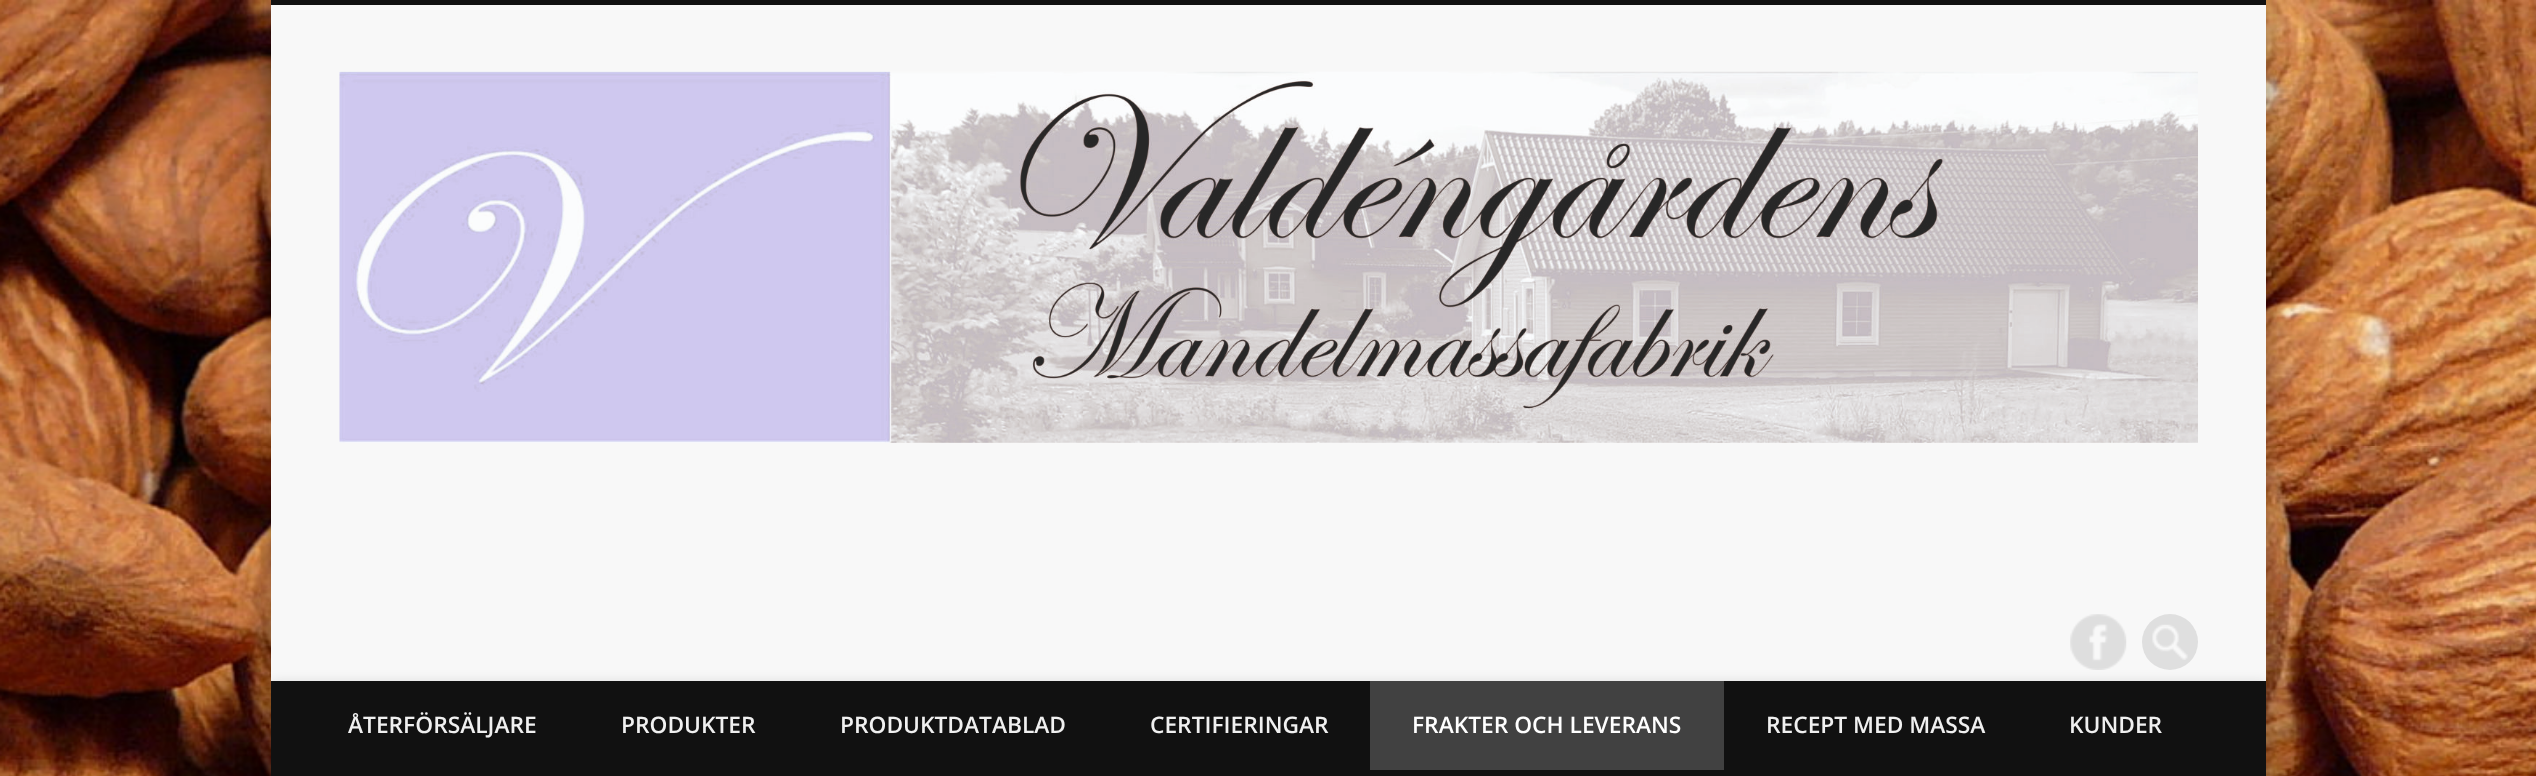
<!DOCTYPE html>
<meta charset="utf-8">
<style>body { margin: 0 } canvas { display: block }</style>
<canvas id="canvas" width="2536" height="776"></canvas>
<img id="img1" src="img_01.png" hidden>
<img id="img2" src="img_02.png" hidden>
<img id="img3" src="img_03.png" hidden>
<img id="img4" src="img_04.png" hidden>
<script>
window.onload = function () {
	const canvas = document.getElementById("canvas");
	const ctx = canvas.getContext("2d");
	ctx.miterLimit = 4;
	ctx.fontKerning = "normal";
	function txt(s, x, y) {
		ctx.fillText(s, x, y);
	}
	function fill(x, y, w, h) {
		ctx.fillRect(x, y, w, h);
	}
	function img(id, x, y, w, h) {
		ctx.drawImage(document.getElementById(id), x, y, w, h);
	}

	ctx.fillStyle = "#FFFFFF";
	fill(0, 0, 2536, 776);
	img("img1", 0, 0, 2536, 776);
	ctx.fillStyle = "rgba(0, 0, 0, 0.4)";
	ctx.filter = "blur(16px)";
	ctx.beginPath();
	ctx.rect(271, 0, 1995, 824);
	ctx.fill();
	ctx.filter = "none";
	ctx.fillStyle = "#F8F8F8";
	fill(271, 5, 1995, 676);
	ctx.fillStyle = "#111111";
	fill(271, 0, 1995, 5);
	img("img2", 339, 71, 1859, 372);
	img("img3", 2070, 614, 57, 56);
	ctx.fillStyle = "#DFDFDF";
	ctx.beginPath();
	ctx.arc(2170, 642, 28, 0, Math.PI * 2);
	ctx.fill();
	img("img4", 2152, 624, 36, 36);
	ctx.save();
	ctx.beginPath();
	ctx.rect(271, 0, 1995, 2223);
	ctx.clip();
	ctx.fillStyle = "rgba(0, 0, 0, 0.1)";
	ctx.filter = "blur(6px)";
	ctx.beginPath();
	ctx.rect(271, 681, 1995, 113);
	ctx.fill();
	ctx.filter = "none";
	ctx.restore();
	ctx.fillStyle = "#111111";
	fill(271, 681, 1995, 95);
	ctx.fillStyle = "#414141";
	fill(1370, 681, 354, 89);
	ctx.font = "600 22.75px Open Sans";
	ctx.fillStyle = "#F0F0F0";
	txt("ÅTERFÖRSÄLJARE", 348, 733);
	txt("PRODUKTER", 621, 733);
	txt("PRODUKTDATABLAD", 840, 733);
	txt("CERTIFIERINGAR", 1150, 733);
	ctx.fillStyle = "#FFFFFF";
	txt("FRAKTER OCH LEVERANS", 1412, 733);
	ctx.fillStyle = "#F0F0F0";
	txt("RECEPT MED MASSA", 1766, 733);
	txt("KUNDER", 2069, 733);
};
</script>
